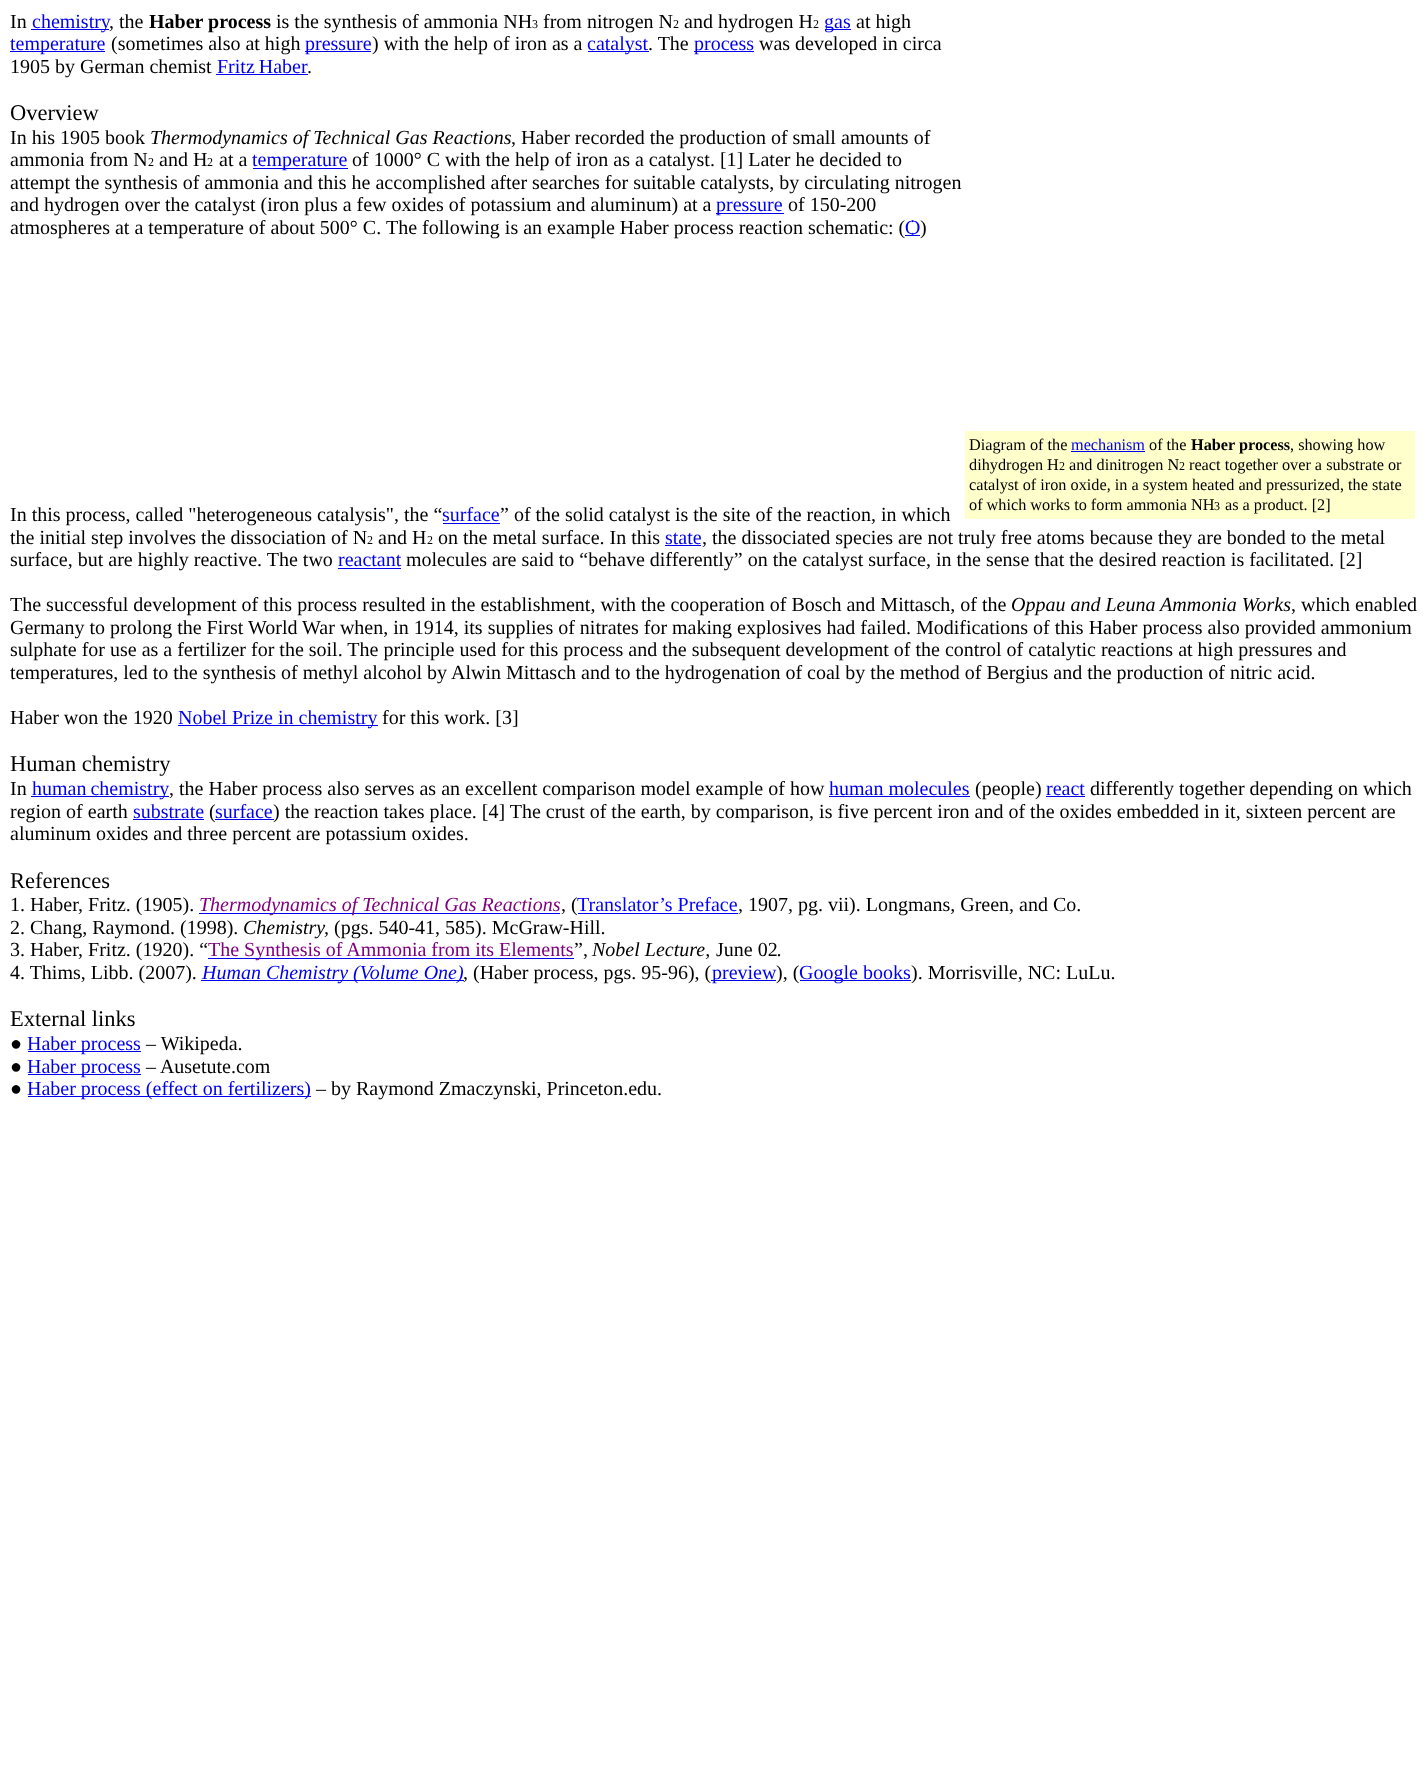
<!DOCTYPE html>
<meta charset="utf-8">
<style>body { margin: 0 } canvas { display: block }</style>
<canvas id="canvas" width="1427" height="1780"></canvas>
<script>
window.onload = function () {
	const canvas = document.getElementById("canvas");
	const ctx = canvas.getContext("2d");
	ctx.miterLimit = 4;
	ctx.fontKerning = "normal";
	function txt(s, x, y) {
		ctx.fillText(s, x, y);
	}
	function fill(x, y, w, h) {
		ctx.fillRect(x, y, w, h);
	}

	ctx.fillStyle = "#FFFFFF";
	fill(0, 0, 1427, 1780);
	ctx.fillStyle = "#0000EE";
	fill(31, 29, 78, 1);
	fill(825, 29, 26, 1);
	fill(10, 51, 95, 1);
	fill(305, 51, 66, 1);
	fill(588, 51, 61, 1);
	fill(694, 51, 60, 1);
	fill(216, 74, 92, 1);
	fill(253, 168, 95, 1);
	fill(716, 213, 68, 1);
	fill(905, 235, 15, 1);
	fill(443, 523, 57, 1);
	ctx.fillStyle = "#FFFFCC";
	fill(965, 431, 450, 88);
	ctx.fillStyle = "#0000EE";
	fill(1071, 451, 74, 1);
	fill(665, 545, 36, 1);
	fill(338, 568, 63, 1);
	fill(178, 725, 200, 1);
	fill(31, 796, 138, 1);
	fill(829, 796, 141, 1);
	fill(1046, 796, 39, 1);
	fill(133, 819, 71, 1);
	fill(215, 819, 59, 1);
	fill(199, 913, 361, 1);
	fill(578, 913, 160, 1);
	fill(208, 958, 366, 1);
	fill(201, 980, 263, 1);
	fill(800, 980, 111, 1);
	fill(28, 1051, 113, 1);
	fill(28, 1074, 113, 1);
	fill(28, 1096, 283, 1);
	ctx.font = "20px Liberation Serif";
	ctx.fillStyle = "#000000";
	txt("In", 10, 28);
	ctx.fillStyle = "#0000EE";
	txt("chemistry", 32, 28);
	ctx.fillStyle = "#000000";
	txt(", the", 109, 28);
	ctx.font = "bold 20px Liberation Serif";
	txt("Haber process", 149, 28);
	ctx.font = "20px Liberation Serif";
	txt("is the synthesis of ammonia NH", 276, 28);
	ctx.font = "12px Liberation Serif";
	txt("3", 532, 28);
	ctx.font = "20px Liberation Serif";
	txt("from nitrogen N", 543, 28);
	ctx.font = "12px Liberation Serif";
	txt("2", 673, 28);
	ctx.font = "20px Liberation Serif";
	txt("and hydrogen H", 684, 28);
	ctx.font = "12px Liberation Serif";
	txt("2", 813, 28);
	ctx.font = "20px Liberation Serif";
	ctx.fillStyle = "#0000EE";
	txt("gas", 824, 28);
	ctx.fillStyle = "#000000";
	txt("at high", 856, 28);
	ctx.fillStyle = "#0000EE";
	txt("temperature", 10, 50);
	ctx.fillStyle = "#000000";
	txt("(sometimes also at high", 111, 50);
	ctx.fillStyle = "#0000EE";
	txt("pressure", 305, 50);
	ctx.fillStyle = "#000000";
	txt(") with the help of iron as a", 372, 50);
	ctx.fillStyle = "#0000EE";
	txt("catalyst", 587, 50);
	ctx.fillStyle = "#000000";
	txt(". The", 648, 50);
	ctx.fillStyle = "#0000EE";
	txt("process", 694, 50);
	ctx.fillStyle = "#000000";
	txt("was developed in circa", 759, 50);
	txt("1905 by German chemist", 10, 73);
	ctx.wordSpacing = "-1px";
	ctx.fillStyle = "#0000EE";
	txt("Fritz Haber", 217, 73);
	ctx.wordSpacing = "0px";
	ctx.fillStyle = "#000000";
	txt(".", 307, 73);
	ctx.font = "22.5px Liberation Serif";
	txt("Overview", 10, 120);
	ctx.font = "20px Liberation Serif";
	txt("In his 1905 book", 10, 144);
	ctx.font = "italic 20px Liberation Serif";
	txt("Thermodynamics of Technical Gas Reactions", 150, 144);
	ctx.font = "20px Liberation Serif";
	txt(", Haber recorded the production of small amounts of", 511, 144);
	txt("ammonia from N", 10, 166);
	ctx.font = "12px Liberation Serif";
	txt("2", 148, 166);
	ctx.font = "20px Liberation Serif";
	txt("and H", 159, 166);
	ctx.font = "12px Liberation Serif";
	txt("2", 207, 166);
	ctx.font = "20px Liberation Serif";
	txt("at a", 219, 166);
	ctx.fillStyle = "#0000EE";
	txt("temperature", 252, 166);
	ctx.fillStyle = "#000000";
	txt("of 1000° C with the help of iron as a catalyst. [1] Later he decided to", 352, 166);
	txt("attempt the synthesis of ammonia and this he accomplished after searches for suitable catalysts, by circulating nitrogen", 10, 189);
	txt("and hydrogen over the catalyst (iron plus a few oxides of potassium and aluminum) at a", 10, 211);
	ctx.fillStyle = "#0000EE";
	txt("pressure", 716, 211);
	ctx.fillStyle = "#000000";
	txt("of 150-200", 788, 211);
	txt("atmospheres at a temperature of about 500° C.", 10, 234);
	txt("The following is an example Haber process reaction schematic: (", 386, 234);
	ctx.fillStyle = "#0000EE";
	txt("Ѻ", 905, 234);
	ctx.fillStyle = "#000000";
	txt(")", 920, 234);
	txt("In this process, called \"heterogeneous catalysis\", the “", 10, 521);
	ctx.fillStyle = "#0000EE";
	txt("surface", 442, 521);
	ctx.fillStyle = "#000000";
	txt("” of the solid catalyst is the site of the reaction, in which", 500, 521);
	ctx.font = "16.25px Liberation Serif";
	txt("Diagram of the", 969, 450);
	ctx.fillStyle = "#0000EE";
	txt("mechanism", 1071, 450);
	ctx.fillStyle = "#000000";
	txt("of the", 1149, 450);
	ctx.font = "bold 16.25px Liberation Serif";
	txt("Haber process", 1191, 450);
	ctx.font = "16.25px Liberation Serif";
	txt(", showing how", 1290, 450);
	txt("dihydrogen H", 969, 470);
	ctx.font = "12px Liberation Serif";
	txt("2", 1059, 470);
	ctx.font = "16.25px Liberation Serif";
	txt("and dinitrogen N", 1069, 470);
	ctx.font = "12px Liberation Serif";
	txt("2", 1179, 470);
	ctx.font = "16.25px Liberation Serif";
	txt("react together over a substrate or", 1189, 470);
	txt("catalyst of iron oxide, in a system heated and pressurized, the state", 969, 490);
	txt("of which works to form ammonia NH", 969, 510);
	ctx.font = "12px Liberation Serif";
	txt("3", 1214, 510);
	ctx.font = "16.25px Liberation Serif";
	txt("as a product. [2]", 1225, 510);
	ctx.font = "20px Liberation Serif";
	txt("the initial step involves the dissociation of N", 10, 544);
	ctx.font = "12px Liberation Serif";
	txt("2", 367, 544);
	ctx.font = "20px Liberation Serif";
	txt("and H", 378, 544);
	ctx.font = "12px Liberation Serif";
	txt("2", 427, 544);
	ctx.font = "20px Liberation Serif";
	txt("on the metal surface. In this", 438, 544);
	ctx.fillStyle = "#0000EE";
	txt("state", 665, 544);
	ctx.fillStyle = "#000000";
	txt(", the dissociated species are not truly free atoms because they are bonded to the metal", 702, 544);
	txt("surface, but are highly reactive. The two", 10, 566);
	ctx.fillStyle = "#0000EE";
	txt("reactant", 338, 566);
	ctx.fillStyle = "#000000";
	txt("molecules are said to “behave differently” on the catalyst surface, in the sense that the desired reaction is facilitated. [2]", 406, 566);
	txt("The successful development of this process resulted in the establishment, with the cooperation of Bosch and Mittasch, of the", 10, 611);
	ctx.font = "italic 20px Liberation Serif";
	txt("Oppau and Leuna Ammonia Works", 1011, 611);
	ctx.font = "20px Liberation Serif";
	txt(", which enabled", 1291, 611);
	txt("Germany to prolong the First World War when, in 1914, its supplies of nitrates for making explosives had failed. Modifications of this Haber process also provided ammonium", 10, 634);
	txt("sulphate for use as a fertilizer for the soil. The principle used for this process and the subsequent development of the control of catalytic reactions at high pressures and", 10, 656);
	txt("temperatures, led to the synthesis of methyl alcohol by Alwin Mittasch and to the hydrogenation of coal by the method of Bergius and the production of nitric acid.", 10, 679);
	txt("Haber won the 1920", 10, 724);
	ctx.fillStyle = "#0000EE";
	txt("Nobel Prize in chemistry", 178, 724);
	ctx.fillStyle = "#000000";
	txt("for this work. [3]", 382, 724);
	ctx.font = "22.5px Liberation Serif";
	txt("Human chemistry", 10, 771);
	ctx.font = "20px Liberation Serif";
	txt("In", 10, 795);
	ctx.wordSpacing = "-1px";
	ctx.fillStyle = "#0000EE";
	txt("human chemistry", 32, 795);
	ctx.wordSpacing = "0px";
	ctx.fillStyle = "#000000";
	txt(", the Haber process also serves as an excellent comparison model example of how", 169, 795);
	ctx.fillStyle = "#0000EE";
	txt("human molecules", 829, 795);
	ctx.fillStyle = "#000000";
	txt("(people)", 975, 795);
	ctx.fillStyle = "#0000EE";
	txt("react", 1046, 795);
	ctx.fillStyle = "#000000";
	txt("differently together depending on which", 1090, 795);
	txt("region of earth", 10, 818);
	ctx.fillStyle = "#0000EE";
	txt("substrate", 133, 818);
	ctx.fillStyle = "#000000";
	txt("(", 209, 818);
	ctx.fillStyle = "#0000EE";
	txt("surface", 215, 818);
	ctx.fillStyle = "#000000";
	txt(") the reaction takes place. [4] The crust of the earth, by comparison, is five percent iron and of the oxides embedded in it, sixteen percent are", 273, 818);
	txt("aluminum oxides and three percent are potassium oxides.", 10, 840);
	ctx.font = "22.5px Liberation Serif";
	txt("References", 10, 888);
	ctx.font = "20px Liberation Serif";
	txt("1. Haber, Fritz. (1905).", 10, 911);
	ctx.font = "italic 20px Liberation Serif";
	ctx.fillStyle = "#800080";
	txt("Thermodynamics of Technical Gas Reactions", 199, 911);
	ctx.font = "20px Liberation Serif";
	ctx.fillStyle = "#000000";
	txt(", (", 561, 911);
	ctx.fillStyle = "#0000FF";
	txt("Translator’s Preface", 577, 911);
	ctx.fillStyle = "#000000";
	txt(", 1907, pg. vii). Longmans, Green, and Co.", 738, 911);
	txt("2. Chang, Raymond. (1998).", 10, 934);
	ctx.font = "italic 20px Liberation Serif";
	txt("Chemistry,", 243, 934);
	ctx.font = "20px Liberation Serif";
	txt("(pgs. 540-41, 585). McGraw-Hill.", 334, 934);
	txt("3. Haber, Fritz. (1920). “", 10, 956);
	ctx.fillStyle = "#800080";
	txt("The Synthesis of Ammonia from its Elements", 208, 956);
	ctx.fillStyle = "#000000";
	txt("”,", 574, 956);
	ctx.font = "italic 20px Liberation Serif";
	txt("Nobel Lecture,", 592, 956);
	ctx.font = "20px Liberation Serif";
	txt("June 02", 716, 956);
	ctx.font = "italic 20px Liberation Serif";
	txt(".", 777, 956);
	ctx.font = "20px Liberation Serif";
	txt("4. Thims, Libb. (2007).", 10, 979);
	ctx.font = "italic 20px Liberation Serif";
	ctx.fillStyle = "#0000EE";
	txt("Human Chemistry (Volume One)", 202, 979);
	ctx.font = "20px Liberation Serif";
	ctx.fillStyle = "#000000";
	txt(", (Haber process, pgs. 95-96), (", 463, 979);
	ctx.fillStyle = "#0000EE";
	fill(711, 980, 65, 1);
	txt("preview", 712, 979);
	ctx.fillStyle = "#000000";
	txt("), (", 776, 979);
	ctx.fillStyle = "#0000EE";
	txt("Google books", 799, 979);
	ctx.fillStyle = "#000000";
	txt("). Morrisville, NC: LuLu.", 911, 979);
	ctx.font = "22.5px Liberation Serif";
	txt("External links", 10, 1026);
	ctx.font = "20px Liberation Serif";
	txt("●", 10, 1050);
	ctx.fillStyle = "#0000EE";
	txt("Haber process", 27, 1050);
	ctx.fillStyle = "#000000";
	txt("– Wikipeda.", 146, 1050);
	txt("●", 10, 1073);
	ctx.fillStyle = "#0000EE";
	txt("Haber process", 27, 1073);
	ctx.fillStyle = "#000000";
	txt("– Ausetute.com", 146, 1073);
	txt("●", 10, 1095);
	ctx.fillStyle = "#0000EE";
	txt("Haber process (effect on fertilizers)", 27, 1095);
	ctx.fillStyle = "#000000";
	txt("– by Raymond Zmaczynski, Princeton.edu.", 316, 1095);
};
</script>
